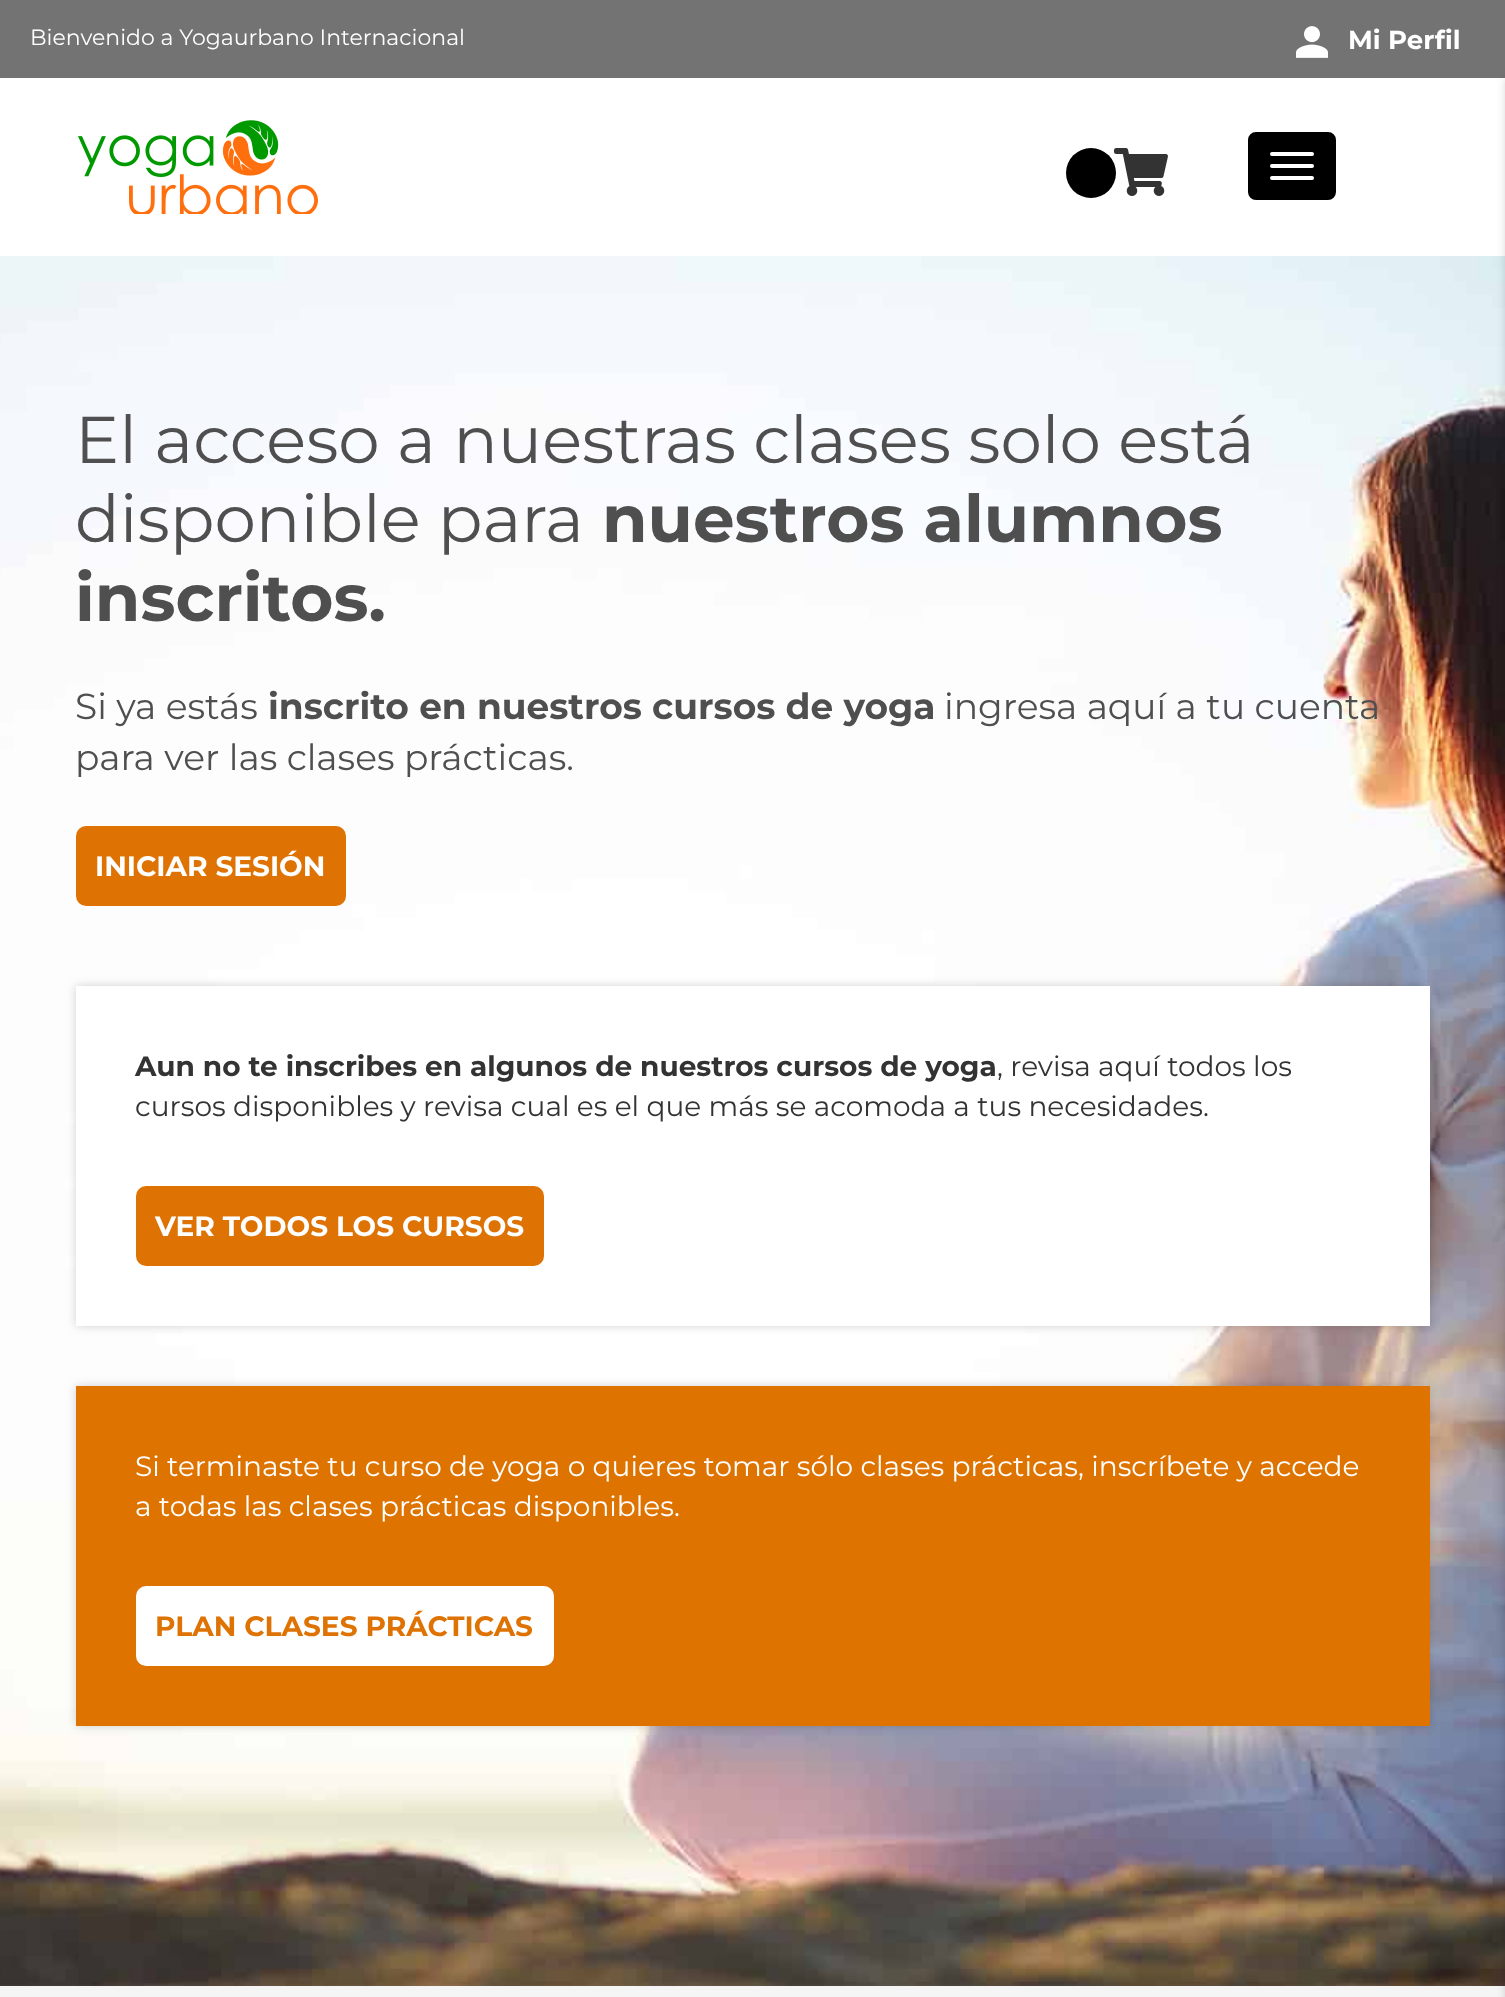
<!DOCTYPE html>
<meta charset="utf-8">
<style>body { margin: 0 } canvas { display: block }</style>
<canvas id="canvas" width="1505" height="1997"></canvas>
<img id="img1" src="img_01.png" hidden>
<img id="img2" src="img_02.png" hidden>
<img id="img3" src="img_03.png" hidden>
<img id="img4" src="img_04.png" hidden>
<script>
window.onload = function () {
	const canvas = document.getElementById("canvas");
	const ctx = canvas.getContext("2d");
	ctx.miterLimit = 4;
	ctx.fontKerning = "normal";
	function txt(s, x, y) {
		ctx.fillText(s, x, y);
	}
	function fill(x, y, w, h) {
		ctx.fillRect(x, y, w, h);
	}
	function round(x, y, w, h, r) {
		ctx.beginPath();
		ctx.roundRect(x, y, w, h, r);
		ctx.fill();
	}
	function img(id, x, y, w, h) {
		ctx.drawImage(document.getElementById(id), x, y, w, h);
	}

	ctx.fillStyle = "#FFFFFF";
	fill(0, 0, 1505, 1997);
	ctx.fillStyle = "#737373";
	fill(0, 0, 1505, 78);
	img("img1", 1296, 26, 32, 32);
	img("img2", 78, 120, 240, 94);
	img("img3", 1114, 148, 54, 48);
	ctx.fillStyle = "#000000";
	ctx.beginPath();
	ctx.arc(1091, 173, 25, 0, Math.PI * 2);
	ctx.fill();
	ctx.beginPath();
	ctx.roundRect(1249, 133, 86, 66, 7);
	ctx.fill();
	ctx.strokeStyle = "#000000";
	ctx.lineWidth = 2;
	ctx.stroke();
	ctx.fillStyle = "#FFFFFF";
	round(1270, 152, 44, 4, 2);
	round(1270, 164, 44, 4, 2);
	round(1270, 176, 44, 4, 2);
	img("img4", 0, 256, 1505, 1730);
	ctx.fillStyle = "#F5F5F5";
	fill(0, 1986, 1505, 11);
	ctx.fillStyle = "rgba(0, 0, 0, 0.18)";
	ctx.filter = "blur(5px)";
	ctx.beginPath();
	ctx.rect(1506, 78, 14, 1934);
	ctx.fill();
	ctx.filter = "none";
	ctx.fillStyle = "#DE7304";
	round(76, 826, 270, 80, 10);
	ctx.fillStyle = "rgba(0, 0, 0, 0.18)";
	ctx.filter = "blur(5px)";
	ctx.beginPath();
	ctx.rect(76, 986, 1354, 340);
	ctx.fill();
	ctx.filter = "none";
	ctx.fillStyle = "#FFFFFF";
	fill(76, 986, 1354, 340);
	ctx.fillStyle = "#DE7304";
	round(136, 1186, 408, 80, 10);
	ctx.fillStyle = "rgba(0, 0, 0, 0.18)";
	ctx.filter = "blur(5px)";
	ctx.beginPath();
	ctx.rect(76, 1386, 1354, 340);
	ctx.fill();
	ctx.filter = "none";
	ctx.fillStyle = "#DE7300";
	fill(76, 1386, 1354, 340);
	ctx.fillStyle = "#FFFFFF";
	round(136, 1586, 418, 80, 10);
	ctx.font = "22px Montserrat";
	txt("Bienvenido a Yogaurbano Internacional", 30, 45);
	ctx.font = "bold 26px Montserrat";
	txt("Mi Perfil", 1348, 49);
	ctx.font = "66px Montserrat";
	ctx.fillStyle = "#4F4F4F";
	txt("El acceso a nuestras clases solo está", 75, 463);
	txt("disponible para", 75, 542);
	ctx.font = "bold 66px Montserrat";
	txt("nuestros alumnos", 602, 542);
	txt("inscritos.", 75, 621);
	ctx.font = "36px Montserrat";
	txt("Si ya estás", 75, 719);
	ctx.font = "bold 36px Montserrat";
	txt("inscrito en nuestros cursos de yoga", 268, 719);
	ctx.font = "36px Montserrat";
	txt("ingresa aquí a tu cuenta", 944, 719);
	txt("para ver las clases prácticas.", 75, 770);
	ctx.font = "bold 28px Montserrat";
	ctx.fillStyle = "#FFFFFF";
	txt("INICIAR SESIÓN", 95, 876);
	ctx.fillStyle = "#333333";
	txt("Aun no te inscribes en algunos de nuestros cursos de yoga", 135, 1076);
	ctx.font = "28px Montserrat";
	txt(", revisa aquí todos los", 997, 1076);
	txt("cursos disponibles y revisa cual es el que más se acomoda a tus necesidades.", 135, 1116);
	ctx.font = "bold 28px Montserrat";
	ctx.fillStyle = "#FFFFFF";
	txt("VER TODOS LOS CURSOS", 155, 1236);
	ctx.font = "28px Montserrat";
	txt("Si terminaste tu curso de yoga o quieres tomar sólo clases prácticas, inscríbete y accede", 135, 1476);
	txt("a todas las clases prácticas disponibles.", 135, 1516);
	ctx.font = "bold 28px Montserrat";
	ctx.fillStyle = "#DE7304";
	txt("PLAN CLASES PRÁCTICAS", 155, 1636);
};
</script>
